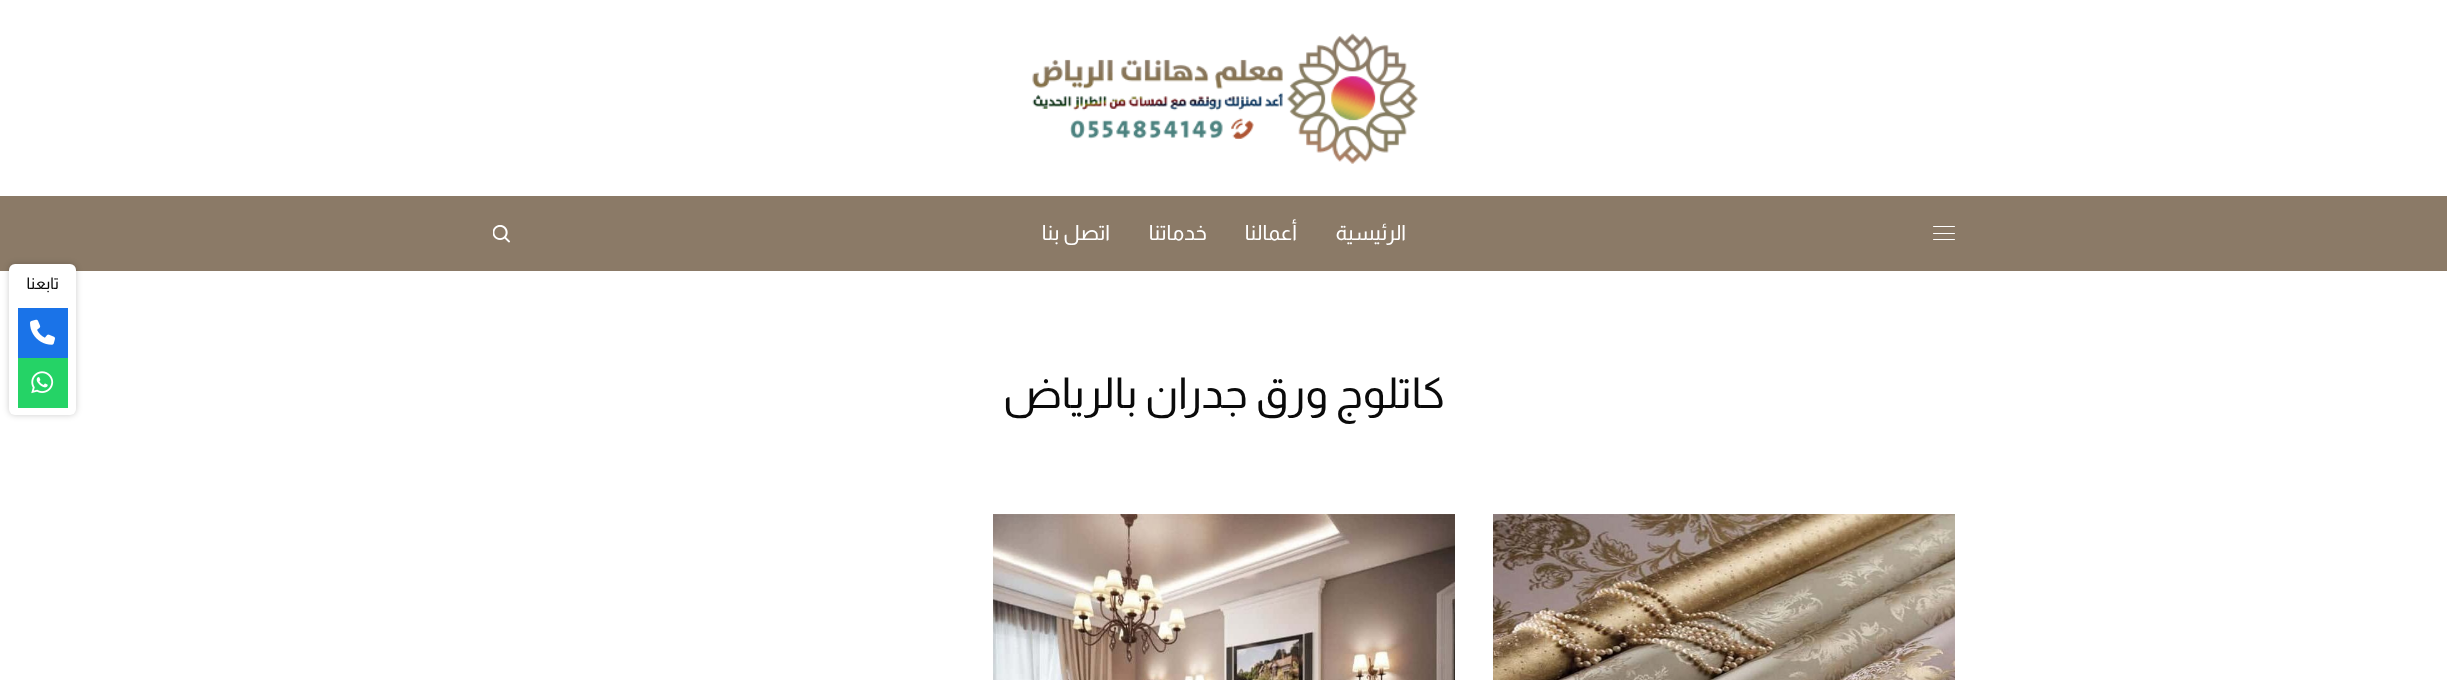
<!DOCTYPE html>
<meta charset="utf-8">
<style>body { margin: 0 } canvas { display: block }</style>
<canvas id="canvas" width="2447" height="680"></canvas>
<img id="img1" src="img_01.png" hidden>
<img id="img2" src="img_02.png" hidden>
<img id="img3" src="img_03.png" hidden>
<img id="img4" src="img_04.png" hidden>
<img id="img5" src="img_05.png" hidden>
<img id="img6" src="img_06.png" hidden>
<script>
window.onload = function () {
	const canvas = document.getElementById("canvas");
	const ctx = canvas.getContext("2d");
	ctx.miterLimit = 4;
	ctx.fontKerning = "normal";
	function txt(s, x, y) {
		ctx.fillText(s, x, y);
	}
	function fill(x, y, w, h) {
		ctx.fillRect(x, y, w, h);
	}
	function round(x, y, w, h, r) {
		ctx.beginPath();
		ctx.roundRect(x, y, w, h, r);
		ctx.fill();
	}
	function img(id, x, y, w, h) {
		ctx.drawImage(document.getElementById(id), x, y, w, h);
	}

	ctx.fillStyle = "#FFFFFF";
	fill(0, 0, 2447, 680);
	img("img1", 1032, 33, 386, 131);
	ctx.fillStyle = "#8B7A67";
	fill(0, 196, 2447, 75);
	ctx.fillStyle = "#FFFFFF";
	round(1933, 226, 22, 1, 0.5);
	round(1933, 233, 22, 1, 0.5);
	round(1933, 239, 22, 1, 0.5);
	img("img2", 493, 225, 17, 18);
	ctx.fillStyle = "rgba(0, 0, 0, 0.2)";
	ctx.filter = "blur(3px)";
	ctx.beginPath();
	ctx.roundRect(9, 264, 67, 151, 6);
	ctx.fill();
	ctx.filter = "none";
	ctx.fillStyle = "#FFFFFF";
	round(9, 264, 67, 151, 6);
	ctx.fillStyle = "#1A73E8";
	fill(18, 308, 50, 50);
	img("img3", 30, 319, 25, 26);
	ctx.fillStyle = "#25D366";
	fill(18, 358, 50, 50);
	img("img4", 31, 371, 23, 23);
	img("img5", 1493, 514, 462, 166);
	img("img6", 993, 514, 462, 166);
	ctx.direction = "rtl";
	ctx.font = "21px Almarai";
	ctx.fillStyle = "#FFFFFF";
	txt("الرئيسية", 1406, 240);
	txt("أعمالنا", 1297, 240);
	txt("خدماتنا", 1207, 240);
	txt("اتصل بنا", 1110, 240);
	ctx.font = "16px Almarai";
	ctx.fillStyle = "#0A0A0A";
	txt("تابعنا", 59, 289);
	ctx.font = "42.5px Almarai";
	txt("كاتلوج ورق جدران بالرياض", 1445, 408);
};
</script>
